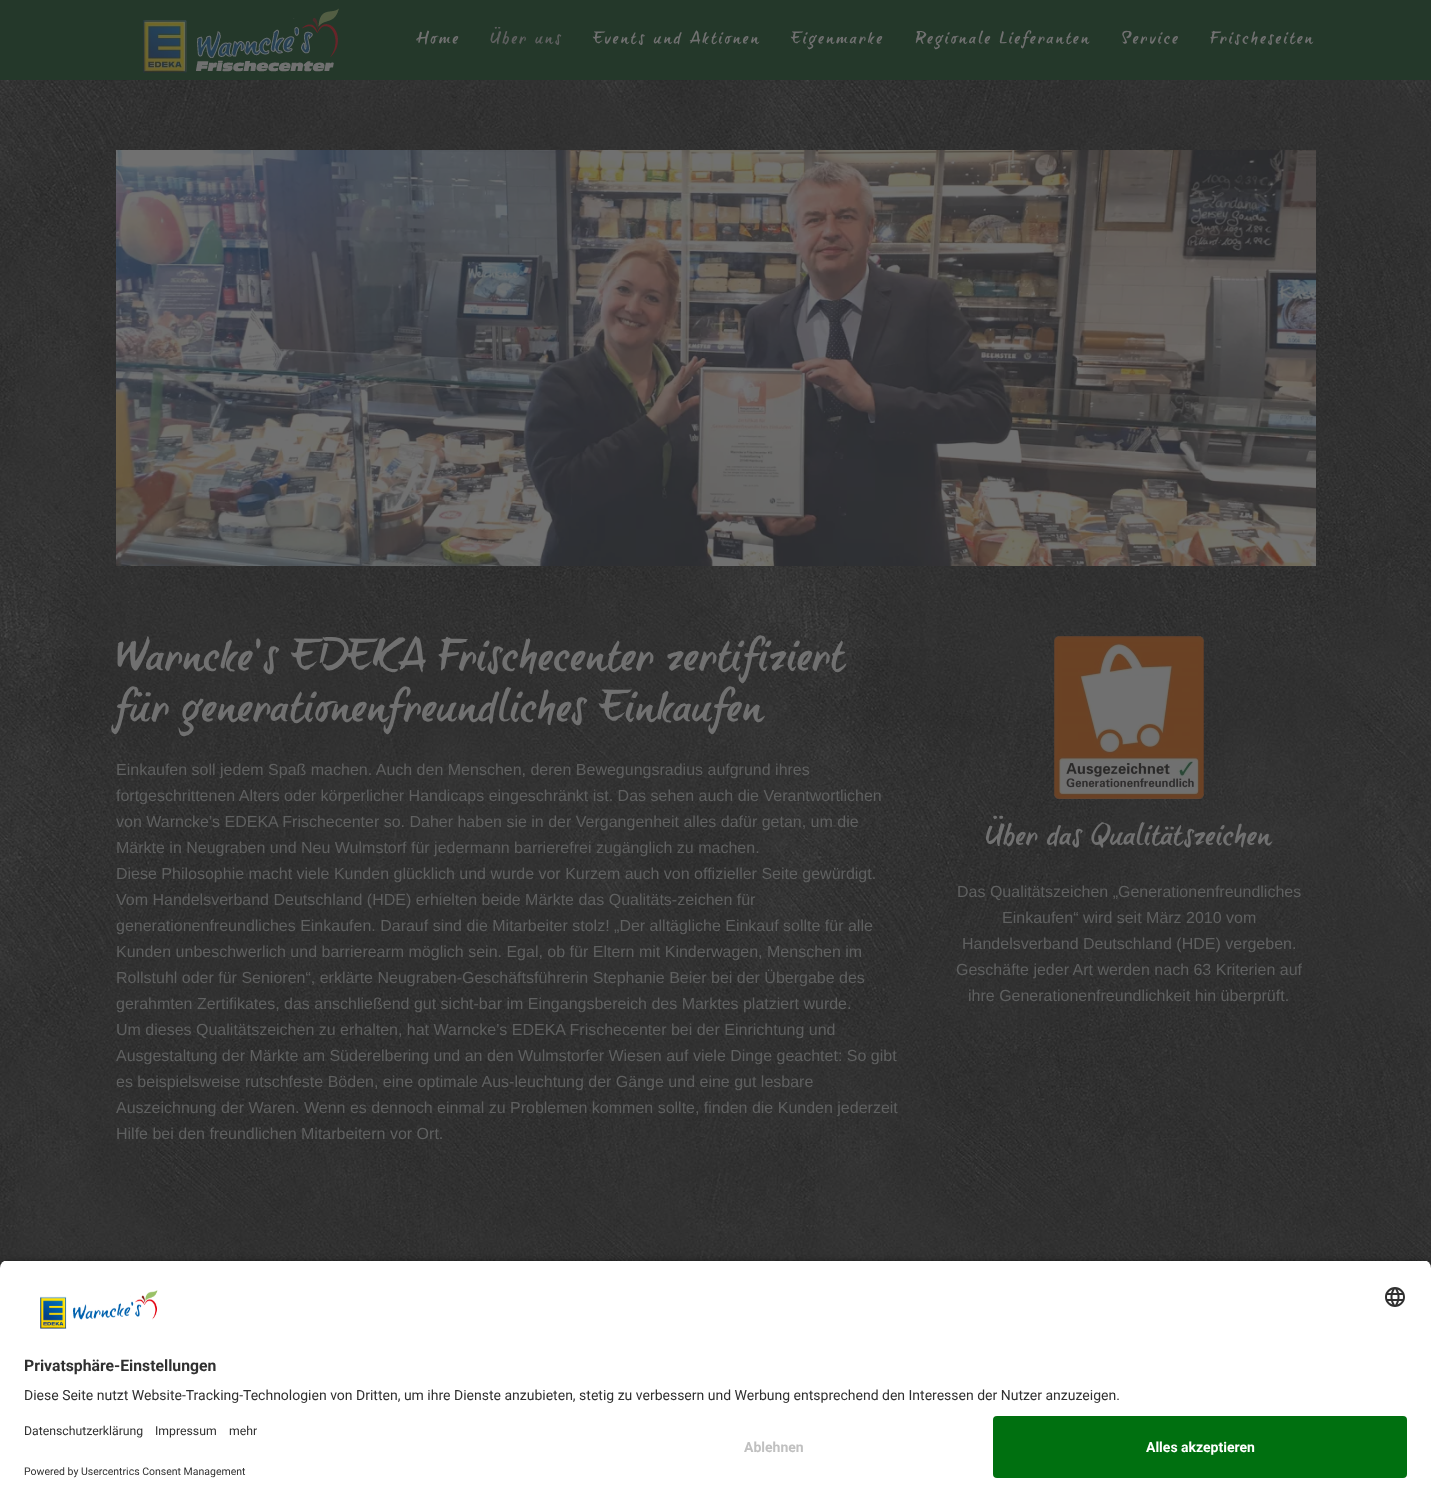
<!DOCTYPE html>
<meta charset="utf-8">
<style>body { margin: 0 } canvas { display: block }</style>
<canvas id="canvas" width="1431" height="1502"></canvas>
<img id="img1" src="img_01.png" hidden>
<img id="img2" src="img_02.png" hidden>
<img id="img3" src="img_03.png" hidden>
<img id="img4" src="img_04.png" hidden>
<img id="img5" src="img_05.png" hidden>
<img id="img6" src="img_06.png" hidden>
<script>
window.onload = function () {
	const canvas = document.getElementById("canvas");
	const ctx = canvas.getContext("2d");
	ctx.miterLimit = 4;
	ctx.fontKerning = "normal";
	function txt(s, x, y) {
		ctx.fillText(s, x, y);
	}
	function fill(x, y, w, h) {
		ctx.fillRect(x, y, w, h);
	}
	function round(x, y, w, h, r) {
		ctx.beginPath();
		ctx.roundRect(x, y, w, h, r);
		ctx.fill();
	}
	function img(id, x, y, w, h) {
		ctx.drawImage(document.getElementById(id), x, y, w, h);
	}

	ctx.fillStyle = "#FFFFFF";
	fill(0, 0, 1431, 1502);
	img("img1", 0, 80, 1431, 1188);
	ctx.fillStyle = "#24382A";
	fill(0, 0, 1431, 80);
	img("img2", 143, 8, 196, 65);
	img("img3", 116, 150, 1200, 416);
	img("img4", 1054, 636, 150, 163);
	ctx.fillStyle = "rgba(0, 0, 0, 0.8)";
	ctx.filter = "blur(3.5px)";
	ctx.beginPath();
	ctx.roundRect(0, 1263, 1431, 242, 8);
	ctx.fill();
	ctx.filter = "none";
	ctx.save();
	ctx.beginPath();
	ctx.roundRect(0, 1260, 1431, 148, [8, 8, 0, 0]);
	ctx.clip();
	ctx.fillStyle = "#FFFFFF";
	fill(0, 1261, 1431, 147);
	ctx.restore();
	img("img5", 40, 1290, 118, 39);
	img("img6", 1385, 1287, 20, 20);
	ctx.fillStyle = "#FFFFFF";
	fill(0, 1408, 1431, 94);
	ctx.fillStyle = "#007010";
	round(993, 1416, 414, 62, 4);
	ctx.letterSpacing = "2px";
	ctx.font = "16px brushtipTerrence";
	ctx.fillStyle = "#707070";
	txt("Home", 416, 43);
	ctx.fillStyle = "#5F6060";
	txt("Über uns", 490, 43);
	ctx.fillStyle = "#707070";
	txt("Events und Aktionen", 593, 43);
	txt("Eigenmarke", 791, 43);
	txt("Regionale Lieferanten", 915, 43);
	txt("Service", 1121, 43);
	txt("Frischeseiten", 1210, 43);
	ctx.letterSpacing = "0px";
	ctx.font = "42px brushtipTerrence";
	txt("Warncke’s EDEKA Frischecenter zertifiziert", 116, 669);
	txt("für generationenfreundliches Einkaufen", 116, 720);
	ctx.font = "16px Liberation Sans";
	ctx.fillStyle = "#5F6060";
	txt("Einkaufen soll jedem Spaß machen. Auch den Menschen, deren Bewegungsradius aufgrund ihres", 116, 775);
	txt("fortgeschrittenen Alters oder körperlicher Handicaps eingeschränkt ist. Das sehen auch die Verantwortlichen", 116, 801);
	txt("von Warncke’s EDEKA Frischecenter so. Daher haben sie in der Vergangenheit alles dafür getan, um die", 116, 827);
	txt("Märkte in Neugraben und Neu Wulmstorf für jedermann barrierefrei zugänglich zu machen.", 116, 853);
	txt("Diese Philosophie macht viele Kunden glücklich und wurde vor Kurzem auch von offizieller Seite gewürdigt.", 116, 879);
	txt("Vom Handelsverband Deutschland (HDE) erhielten beide Märkte das Qualitäts-zeichen für", 116, 905);
	txt("generationenfreundliches Einkaufen. Darauf sind die Mitarbeiter stolz! „Der alltägliche Einkauf sollte für alle", 116, 931);
	txt("Kunden unbeschwerlich und barrierearm möglich sein. Egal, ob für Eltern mit Kinderwagen, Menschen im", 116, 957);
	txt("Rollstuhl oder für Senioren“, erklärte Neugraben-Geschäftsführerin Stephanie Beier bei der Übergabe des", 116, 983);
	txt("gerahmten Zertifikates, das anschließend gut sicht-bar im Eingangsbereich des Marktes platziert wurde.", 116, 1009);
	txt("Um dieses Qualitätszeichen zu erhalten, hat Warncke’s EDEKA Frischecenter bei der Einrichtung und", 116, 1035);
	txt("Ausgestaltung der Märkte am Süderelbering und an den Wulmstorfer Wiesen auf viele Dinge geachtet: So gibt", 116, 1061);
	txt("es beispielsweise rutschfeste Böden, eine optimale Aus-leuchtung der Gänge und eine gut lesbare", 116, 1087);
	txt("Auszeichnung der Waren. Wenn es dennoch einmal zu Problemen kommen sollte, finden die Kunden jederzeit", 116, 1113);
	txt("Hilfe bei den freundlichen Mitarbeitern vor Ort.", 116, 1139);
	ctx.font = "28px brushtipTerrence";
	ctx.fillStyle = "#707070";
	txt("Über das Qualitätszeichen", 985, 844);
	ctx.font = "16px Liberation Sans";
	ctx.fillStyle = "#5F6060";
	txt("Das Qualitätszeichen „Generationenfreundliches", 957, 897);
	txt("Einkaufen“ wird seit März 2010 vom", 1002, 923);
	txt("Handelsverband Deutschland (HDE) vergeben.", 962, 949);
	txt("Geschäfte jeder Art werden nach 63 Kriterien auf", 956, 975);
	txt("ihre Generationenfreundlichkeit hin überprüft.", 968, 1001);
	ctx.font = "bold 15.75px Roboto";
	ctx.fillStyle = "#303030";
	txt("Privatsphäre-Einstellungen", 24, 1371);
	ctx.font = "14px Roboto";
	txt("Diese Seite nutzt Website-Tracking-Technologien von Dritten, um ihre Dienste anzubieten, stetig zu verbessern und Werbung entsprechend den Interessen der Nutzer anzuzeigen.", 24, 1400);
	ctx.font = "12.25px Roboto";
	txt("Datenschutzerklärung", 24, 1435);
	txt("Impressum", 155, 1435);
	txt("mehr", 229, 1435);
	ctx.font = "10.5px Roboto";
	txt("Powered by Usercentrics Consent Management", 24, 1475);
	ctx.font = "bold 14px Roboto";
	ctx.fillStyle = "#C0C0C0";
	txt("Ablehnen", 744, 1452);
	ctx.fillStyle = "#FFFFFF";
	txt("Alles akzeptieren", 1146, 1452);
};
</script>
